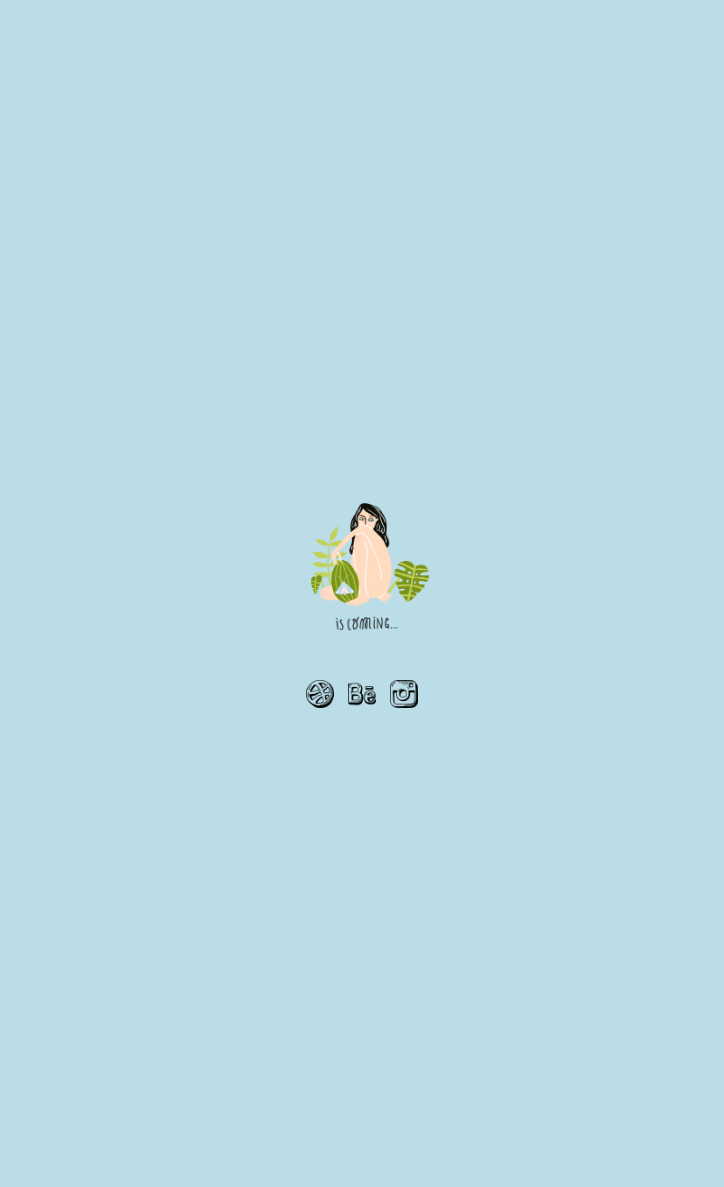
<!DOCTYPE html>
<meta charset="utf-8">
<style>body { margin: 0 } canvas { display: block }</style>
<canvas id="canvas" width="724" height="1187"></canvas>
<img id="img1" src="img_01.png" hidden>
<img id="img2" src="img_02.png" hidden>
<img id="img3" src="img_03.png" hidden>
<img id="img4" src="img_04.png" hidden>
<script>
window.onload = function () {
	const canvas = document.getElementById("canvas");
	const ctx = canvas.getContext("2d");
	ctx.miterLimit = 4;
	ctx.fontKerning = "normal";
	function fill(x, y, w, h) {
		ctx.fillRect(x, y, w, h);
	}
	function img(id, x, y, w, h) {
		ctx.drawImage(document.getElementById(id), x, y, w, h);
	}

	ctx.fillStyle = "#BBDDE7";
	fill(0, 0, 724, 1187);
	img("img1", 311, 503, 119, 128);
	img("img2", 306, 680, 28, 28);
	img("img3", 348, 682, 28, 24);
	img("img4", 390, 680, 28, 28);
};
</script>
